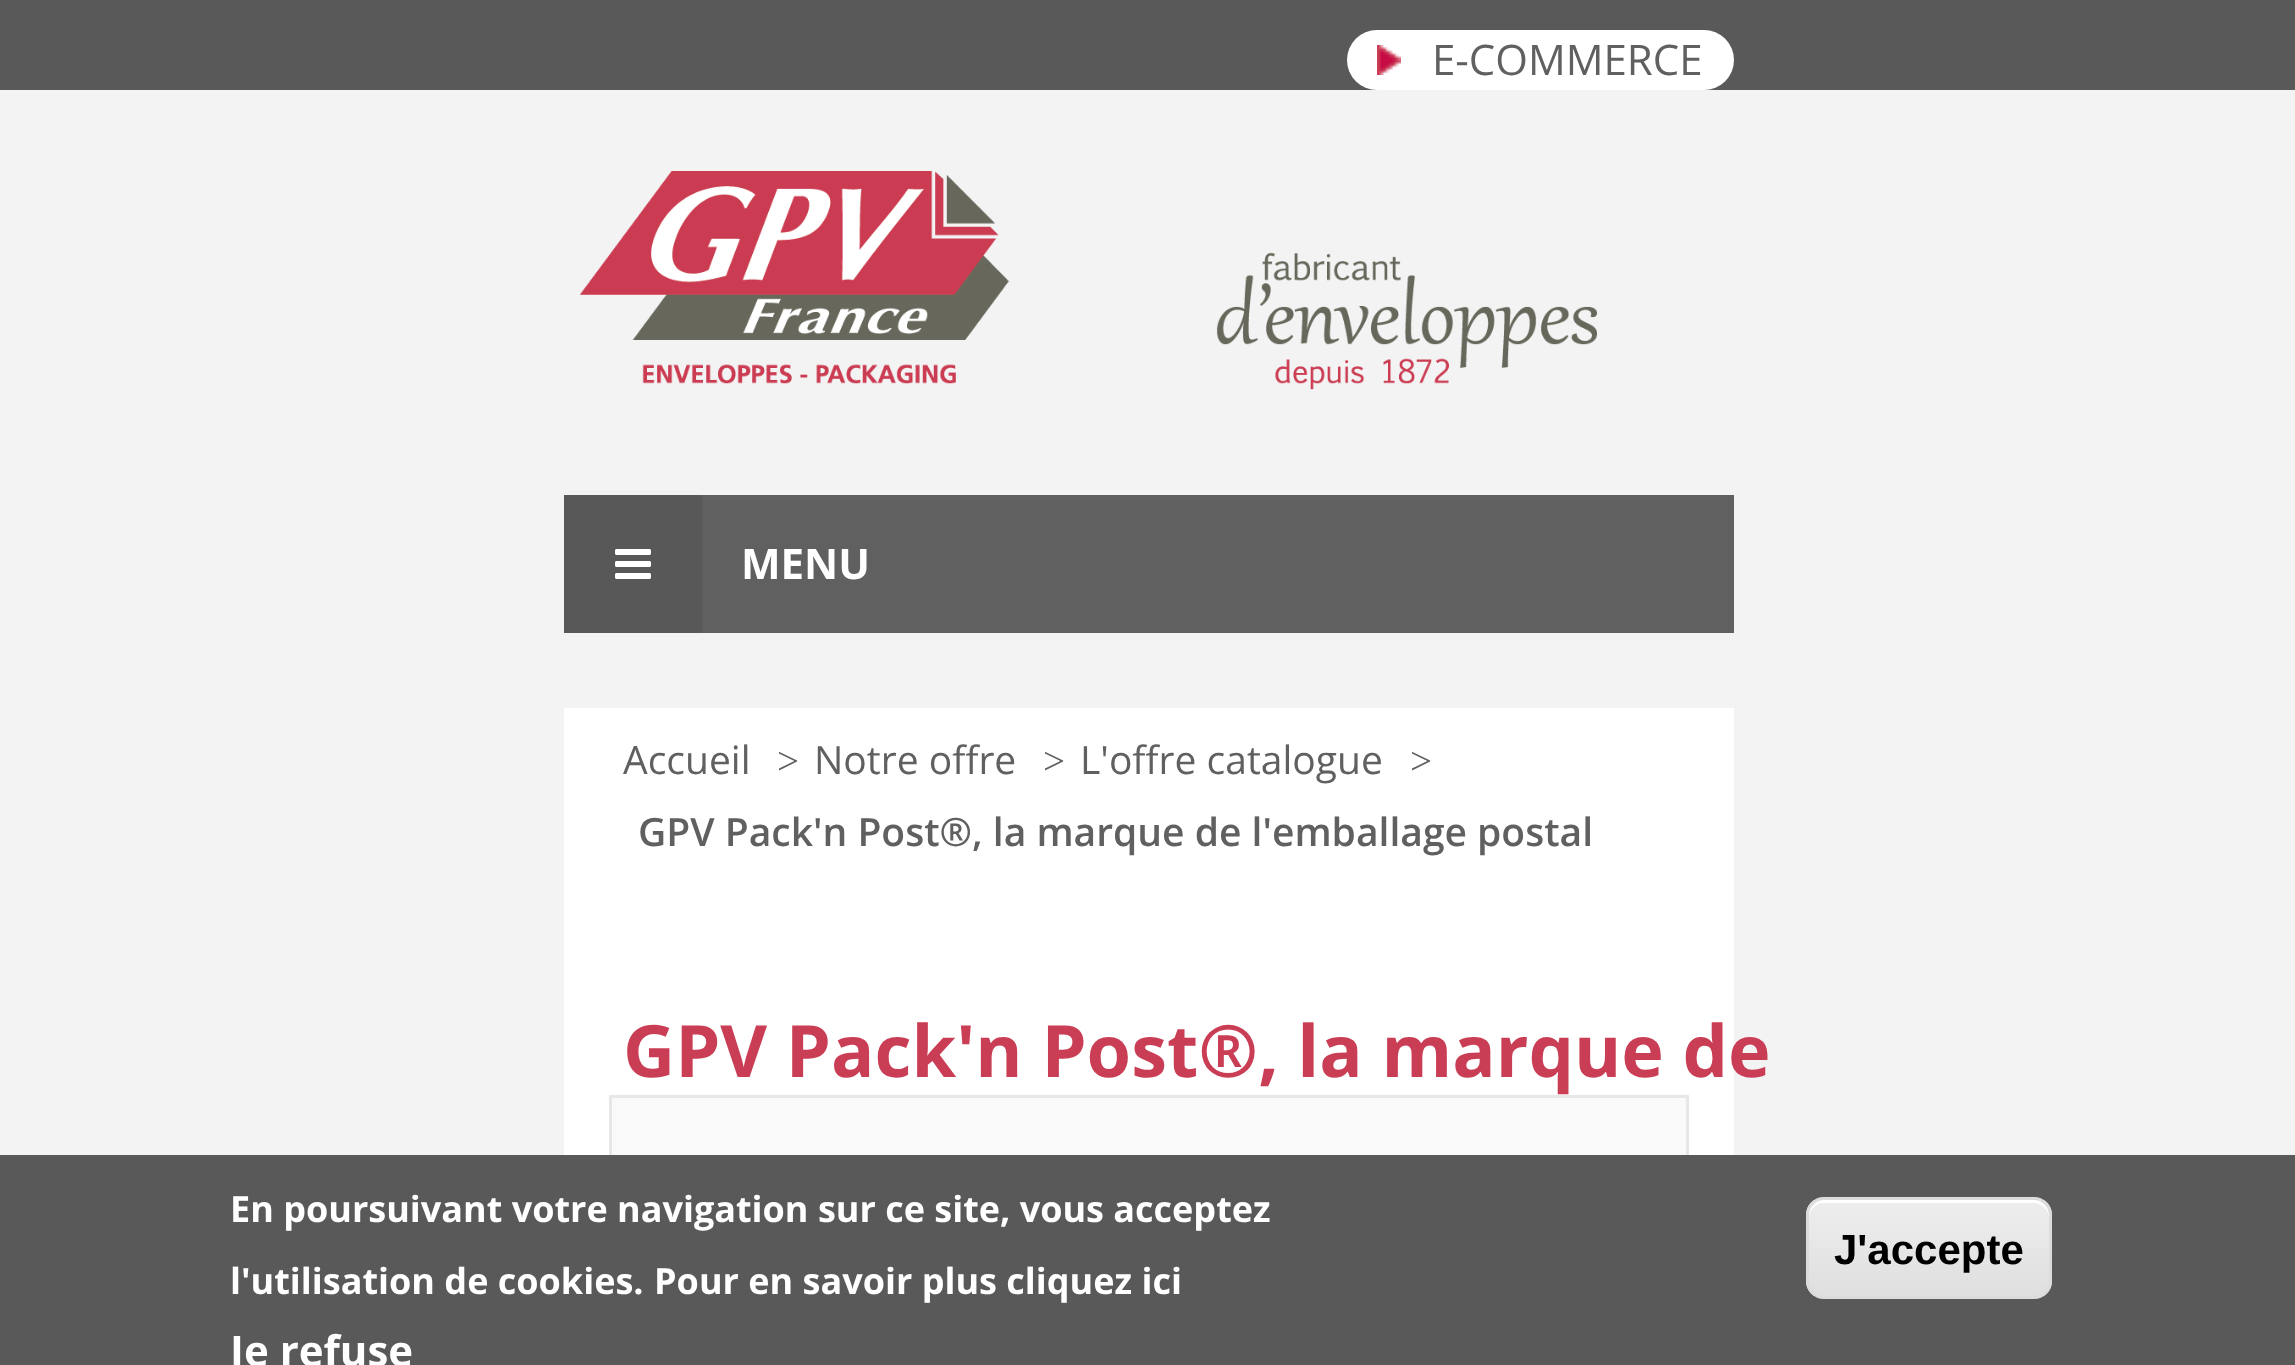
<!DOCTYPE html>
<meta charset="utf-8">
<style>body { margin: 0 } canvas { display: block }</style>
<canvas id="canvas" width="2295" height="1365"></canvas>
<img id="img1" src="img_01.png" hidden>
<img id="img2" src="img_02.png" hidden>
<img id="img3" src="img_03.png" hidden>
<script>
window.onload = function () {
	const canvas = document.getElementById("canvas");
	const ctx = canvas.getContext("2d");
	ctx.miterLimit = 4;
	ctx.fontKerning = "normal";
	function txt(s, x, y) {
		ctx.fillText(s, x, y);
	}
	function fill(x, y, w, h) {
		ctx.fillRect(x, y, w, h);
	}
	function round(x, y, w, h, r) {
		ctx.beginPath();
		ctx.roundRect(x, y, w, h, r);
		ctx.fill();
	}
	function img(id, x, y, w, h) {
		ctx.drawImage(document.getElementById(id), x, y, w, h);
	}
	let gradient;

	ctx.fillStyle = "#595959";
	fill(0, 0, 2295, 1365);
	ctx.fillStyle = "#F3F3F3";
	fill(0, 90, 2295, 1065);
	ctx.fillStyle = "#FFFFFF";
	round(1347, 30, 387, 60, 30);
	img("img1", 1377, 45, 24, 30);
	img("img2", 580, 171, 1017, 219);
	ctx.fillStyle = "#606060";
	fill(702, 495, 1032, 138);
	ctx.fillStyle = "#585858";
	fill(564, 495, 138, 138);
	img("img3", 615, 549, 36, 30);
	ctx.fillStyle = "#FFFFFF";
	fill(564, 708, 1170, 447);
	ctx.fillStyle = "#F9F9F9";
	fill(612, 1098, 1074, 57);
	ctx.strokeStyle = "#E7E7E7";
	ctx.lineWidth = 3;
	ctx.strokeRect(610.5, 1096.5, 1077, 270);
	ctx.fillStyle = "#595959";
	fill(609, 1155, 1080, 210);
	ctx.save();
	ctx.beginPath();
	ctx.roundRect(1806, 1197, 246, 102, 18);
	ctx.clip();
	gradient = ctx.createLinearGradient(1929, 1200, 1929, 1296);
	gradient.addColorStop(0.05, "#EDEDED");
	gradient.addColorStop(1, "#DFDFDF");
	ctx.fillStyle = gradient;
	fill(1806, 1200, 246, 96);
	ctx.restore();
	ctx.fillStyle = "#FFFFFF";
	ctx.beginPath();
	ctx.moveTo(1824, 1203);
	ctx.lineTo(2034, 1203);
	ctx.bezierCurveTo(2042, 1203, 2049, 1210, 2049, 1218);
	ctx.lineTo(2049, 1215);
	ctx.bezierCurveTo(2049, 1207, 2042, 1200, 2034, 1200);
	ctx.lineTo(1824, 1200);
	ctx.bezierCurveTo(1816, 1200, 1809, 1207, 1809, 1215);
	ctx.lineTo(1809, 1218);
	ctx.bezierCurveTo(1809, 1210, 1816, 1203, 1824, 1203);
	ctx.closePath();
	ctx.fill();
	ctx.beginPath();
	ctx.roundRect(1807.5, 1198.5, 243, 99, 16.5);
	ctx.strokeStyle = "#DCDCDC";
	ctx.stroke();
	ctx.font = "42px Open Sans";
	ctx.fillStyle = "#606060";
	txt("E-COMMERCE", 1432, 75);
	ctx.font = "bold 42px Open Sans";
	ctx.fillStyle = "#FFFFFF";
	txt("MENU", 741, 579);
	ctx.font = "39px Open Sans";
	ctx.fillStyle = "#606060";
	txt("Accueil", 623, 774);
	ctx.font = "39px Liberation Serif";
	txt(">", 777, 774);
	ctx.font = "39px Open Sans";
	txt("Notre offre", 814, 774);
	ctx.font = "39px Liberation Serif";
	txt(">", 1043, 774);
	ctx.font = "39px Open Sans";
	txt("L'offre catalogue", 1080, 774);
	ctx.font = "39px Liberation Serif";
	txt(">", 1410, 774);
	ctx.font = "600 39px Open Sans";
	txt("GPV Pack'n Post®, la marque de l'emballage postal", 638, 846);
	ctx.font = "bold 72px Open Sans";
	ctx.fillStyle = "#CA3E55";
	txt("GPV Pack'n Post®, la marque de", 623, 1077);
	ctx.font = "bold 36px Open Sans";
	ctx.fillStyle = "#FFFFFF";
	txt("En poursuivant votre navigation sur ce site, vous acceptez", 230, 1222);
	txt("l'utilisation de cookies.", 230, 1294);
	txt("Pour en savoir plus cliquez ici", 654, 1294);
	ctx.font = "bold 42px Open Sans";
	txt("Je refuse", 230, 1366);
	ctx.font = "bold 42px Liberation Sans";
	ctx.fillStyle = "#000000";
	txt("J'accepte", 1834, 1264);
};
</script>
